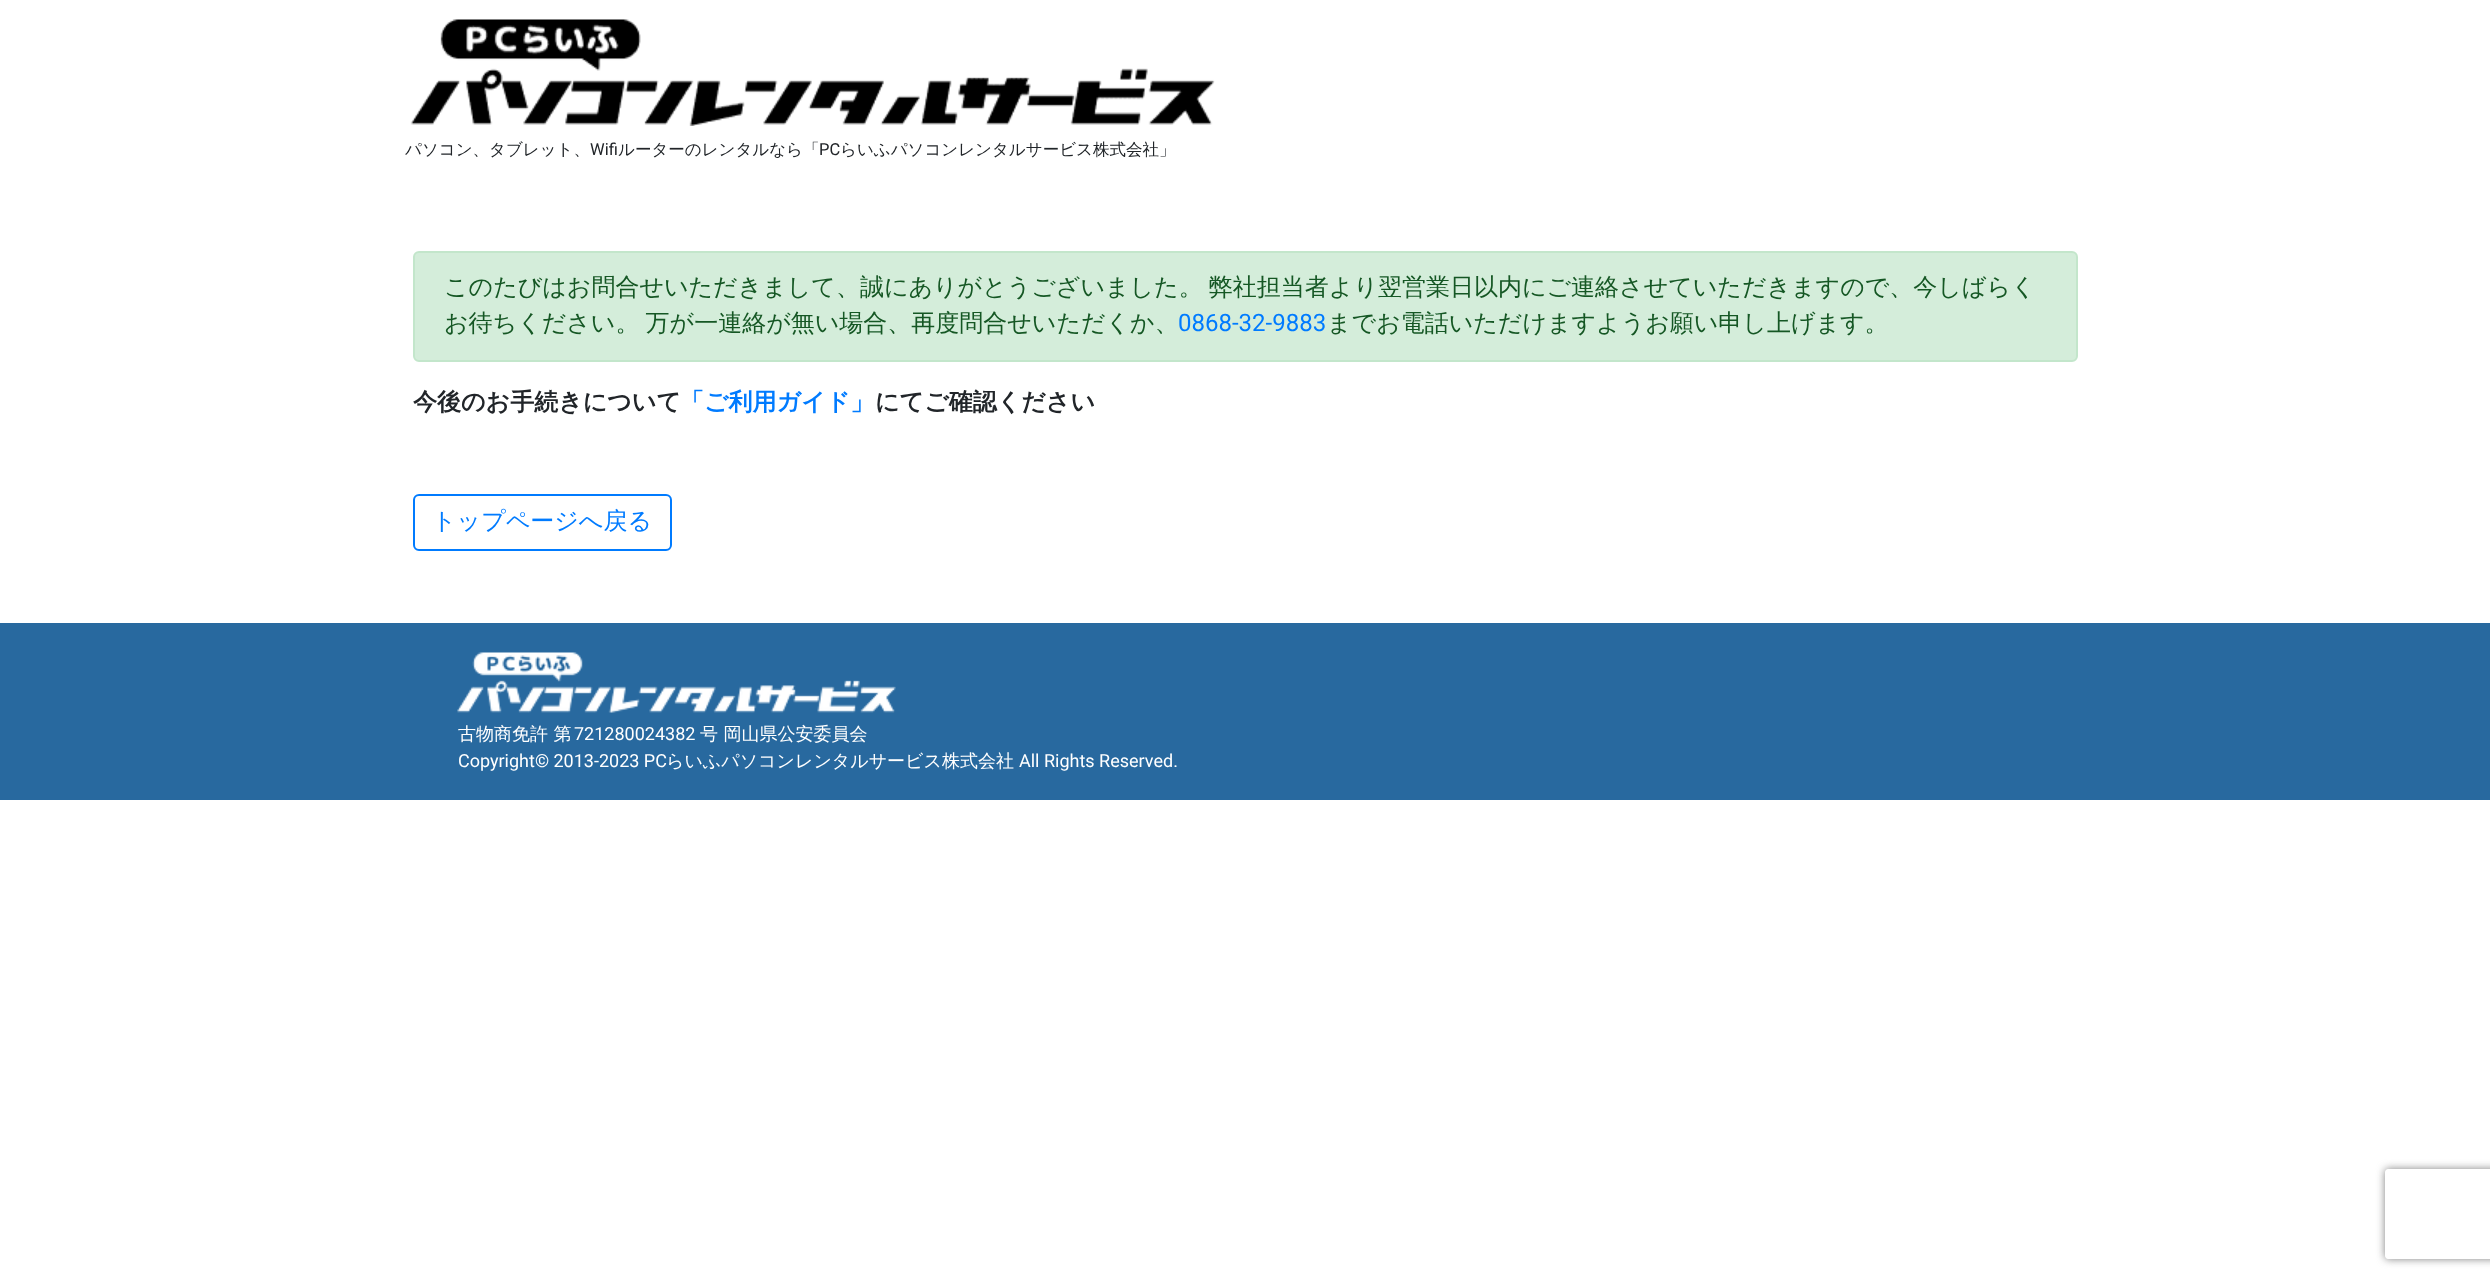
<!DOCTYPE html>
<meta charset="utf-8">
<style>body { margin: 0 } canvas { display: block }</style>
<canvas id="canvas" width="2490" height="1279"></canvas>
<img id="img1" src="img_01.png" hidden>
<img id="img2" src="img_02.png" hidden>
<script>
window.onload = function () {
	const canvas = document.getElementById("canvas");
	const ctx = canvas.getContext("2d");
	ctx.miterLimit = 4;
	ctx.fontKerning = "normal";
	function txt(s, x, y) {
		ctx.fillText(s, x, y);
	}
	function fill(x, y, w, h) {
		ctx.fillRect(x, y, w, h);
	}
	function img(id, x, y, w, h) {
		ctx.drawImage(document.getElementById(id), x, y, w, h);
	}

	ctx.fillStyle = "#FFFFFF";
	fill(0, 0, 2490, 1279);
	img("img1", 410, 19, 805, 107);
	ctx.fillStyle = "#D4EDDA";
	ctx.beginPath();
	ctx.roundRect(414, 252, 1663, 109, 5);
	ctx.fill();
	ctx.strokeStyle = "#C3E6CB";
	ctx.lineWidth = 2;
	ctx.stroke();
	ctx.beginPath();
	ctx.roundRect(414, 495, 257, 55, 5);
	ctx.strokeStyle = "#007BFF";
	ctx.stroke();
	ctx.fillStyle = "#28699F";
	fill(0, 623, 2490, 177);
	img("img2", 457, 652, 439, 61);
	ctx.save();
	ctx.beginPath();
	ctx.moveTo(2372, 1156);
	ctx.lineTo(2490, 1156);
	ctx.lineTo(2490, 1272);
	ctx.lineTo(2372, 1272);
	ctx.closePath();
	ctx.moveTo(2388, 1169);
	ctx.lineTo(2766, 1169);
	ctx.bezierCurveTo(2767.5, 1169, 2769, 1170.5, 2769, 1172);
	ctx.lineTo(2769, 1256);
	ctx.bezierCurveTo(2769, 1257.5, 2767.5, 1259, 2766, 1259);
	ctx.lineTo(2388, 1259);
	ctx.bezierCurveTo(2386.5, 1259, 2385, 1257.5, 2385, 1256);
	ctx.lineTo(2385, 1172);
	ctx.bezierCurveTo(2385, 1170.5, 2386.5, 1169, 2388, 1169);
	ctx.closePath();
	ctx.clip("evenodd");
	ctx.fillStyle = "#808080";
	ctx.filter = "blur(4px)";
	ctx.beginPath();
	ctx.roundRect(2385, 1169, 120, 90, 3);
	ctx.fill();
	ctx.filter = "none";
	ctx.restore();
	ctx.font = "500 16.5px WenQuanYi Zen Hei";
	ctx.fillStyle = "#212529";
	txt("パソコン、タブレット、", 405, 155);
	ctx.font = "16.5px Roboto";
	txt("Wifi", 590, 155);
	ctx.font = "500 16.5px WenQuanYi Zen Hei";
	txt("ルーターのレンタルなら「", 618, 155);
	ctx.font = "16.5px Roboto";
	txt("PC", 819, 155);
	ctx.font = "500 16.5px WenQuanYi Zen Hei";
	txt("らいふパソコンレンタルサービス株式会社」", 840, 155);
	ctx.wordSpacing = "-1px";
	ctx.font = "500 24px WenQuanYi Zen Hei";
	ctx.fillStyle = "#155724";
	txt("このたびはお問合せいただきまして、誠にありがとうございました。 弊社担当者より翌営業日以内にご連絡させていただきますので、今しばらく", 444, 295);
	txt("お待ちください。 万が一連絡が無い場合、再度問合せいただくか、", 444, 331);
	ctx.wordSpacing = "0px";
	ctx.font = "24px Roboto";
	ctx.fillStyle = "#007BFF";
	txt("0868-32-9883", 1178, 331);
	ctx.font = "500 24px WenQuanYi Zen Hei";
	ctx.fillStyle = "#155724";
	txt("までお電話いただけますようお願い申し上げます。", 1327, 331);
	ctx.font = "bold 24px WenQuanYi Zen Hei";
	ctx.fillStyle = "#212529";
	txt("今後のお手続きについて", 413, 410);
	ctx.fillStyle = "#007BFF";
	txt("「ご利用ガイド」", 680, 410);
	ctx.fillStyle = "#212529";
	txt("にてご確認ください", 875, 410);
	ctx.font = "500 24px WenQuanYi Zen Hei";
	ctx.fillStyle = "#007BFF";
	txt("トップページへ戻る", 432, 529);
	ctx.font = "500 18px WenQuanYi Zen Hei";
	ctx.fillStyle = "#FFFFFF";
	txt("古物商免許 第", 458, 740);
	ctx.font = "18px Roboto";
	txt("721280024382", 574, 740);
	ctx.font = "500 18px WenQuanYi Zen Hei";
	txt("号 岡山県公安委員会", 700, 740);
	ctx.font = "18px Roboto";
	txt("Copyright© 2013-2023 PC", 458, 767);
	ctx.font = "500 18px WenQuanYi Zen Hei";
	txt("らいふパソコンレンタルサービス株式会社", 666, 767);
	ctx.font = "18px Roboto";
	txt("All Rights Reserved.", 1019, 767);
};
</script>
